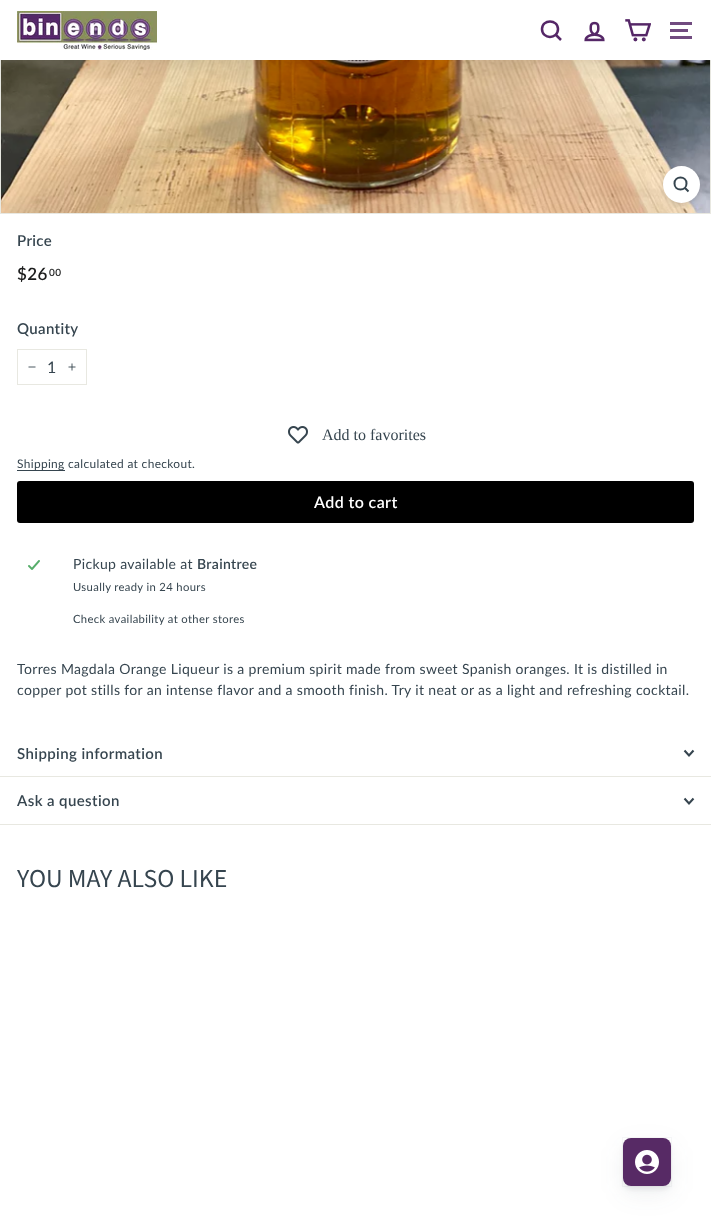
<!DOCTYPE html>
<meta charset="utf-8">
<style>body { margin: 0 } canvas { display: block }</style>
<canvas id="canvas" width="711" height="1226"></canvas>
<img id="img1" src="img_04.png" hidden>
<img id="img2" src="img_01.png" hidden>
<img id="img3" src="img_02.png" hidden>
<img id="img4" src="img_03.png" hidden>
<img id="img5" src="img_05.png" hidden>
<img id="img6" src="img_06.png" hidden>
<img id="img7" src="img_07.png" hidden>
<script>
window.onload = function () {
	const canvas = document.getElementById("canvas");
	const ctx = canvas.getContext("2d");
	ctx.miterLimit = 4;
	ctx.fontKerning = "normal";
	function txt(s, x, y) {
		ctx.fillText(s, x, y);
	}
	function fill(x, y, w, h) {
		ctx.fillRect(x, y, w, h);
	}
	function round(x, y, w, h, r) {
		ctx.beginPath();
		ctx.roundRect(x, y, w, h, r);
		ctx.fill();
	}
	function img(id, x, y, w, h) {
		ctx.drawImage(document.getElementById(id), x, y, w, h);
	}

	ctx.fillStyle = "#FFFFFF";
	fill(0, 0, 711, 1226);
	ctx.strokeStyle = "#E8E8E1";
	ctx.strokeRect(0.5, -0.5, 710, 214);
	img("img1", 1, 60, 709, 153);
	ctx.fillStyle = "rgba(0, 0, 0, 0.1)";
	ctx.filter = "blur(12.5px)";
	ctx.beginPath();
	ctx.rect(0, 0, 711, 60);
	ctx.fill();
	ctx.filter = "none";
	ctx.fillStyle = "#FFFFFF";
	fill(0, 0, 711, 60);
	img("img2", 17, 11, 140, 39);
	ctx.beginPath();
	ctx.moveTo(558, 29);
	ctx.bezierCurveTo(558, 39.5, 542, 39.5, 542, 29);
	ctx.bezierCurveTo(542, 19, 558, 19, 558, 29);
	ctx.closePath();
	ctx.moveTo(561, 40);
	ctx.lineTo(555.5, 34.5);
	ctx.strokeStyle = "#552767";
	ctx.lineWidth = 2.5;
	ctx.stroke();
	img("img3", 584, 21, 21, 21);
	img("img4", 625, 19, 26, 23);
	ctx.fillStyle = "#714B80";
	fill(670, 22, 22, 3);
	fill(670, 29, 18, 3);
	fill(670, 36, 22, 3);
	ctx.fillStyle = "rgba(0, 0, 0, 0.15)";
	ctx.filter = "blur(3px)";
	ctx.beginPath();
	ctx.roundRect(663, 169, 37, 37, 18.5);
	ctx.fill();
	ctx.filter = "none";
	ctx.fillStyle = "#FFFFFF";
	ctx.beginPath();
	ctx.arc(681.5, 184.5, 18.5, 0, Math.PI * 2);
	ctx.fill();
	ctx.beginPath();
	ctx.moveTo(686.5, 183.5);
	ctx.bezierCurveTo(686.5, 191.5, 674.5, 191.5, 674.5, 183.5);
	ctx.bezierCurveTo(674.5, 175.5, 686.5, 175.5, 686.5, 183.5);
	ctx.closePath();
	ctx.moveTo(688.5, 191.5);
	ctx.lineTo(685, 188);
	ctx.strokeStyle = "#36454F";
	ctx.lineWidth = 2;
	ctx.stroke();
	ctx.strokeStyle = "#E8E8E1";
	ctx.lineWidth = 1;
	ctx.strokeRect(17.5, 349.5, 69, 35);
	ctx.beginPath();
	ctx.moveTo(35.5, 367);
	ctx.lineTo(28.5, 367);
	ctx.moveTo(72, 363.5);
	ctx.lineTo(72, 370.5);
	ctx.moveTo(75.5, 367);
	ctx.lineTo(68.5, 367);
	ctx.strokeStyle = "#36454F";
	ctx.lineWidth = 0.9;
	ctx.stroke();
	img("img5", 288, 426, 20, 18);
	ctx.fillStyle = "#36454F";
	fill(17, 470, 48, 1);
	ctx.fillStyle = "#000000";
	round(17, 481, 677, 42, 3);
	img("img6", 28, 560, 12, 10);
	ctx.fillStyle = "#E8E8E1";
	fill(0, 776, 711, 1);
	ctx.beginPath();
	ctx.moveTo(684.5, 750.5);
	ctx.lineTo(689, 755.5);
	ctx.lineTo(693.5, 750.5);
	ctx.lineWidth = 2.1;
	ctx.stroke();
	fill(0, 824, 711, 1);
	ctx.beginPath();
	ctx.moveTo(684.5, 798.5);
	ctx.lineTo(689, 803.5);
	ctx.lineTo(693.5, 798.5);
	ctx.stroke();
	ctx.fillStyle = "rgba(55, 63, 71, 0.08)";
	ctx.filter = "blur(12px)";
	ctx.beginPath();
	ctx.roundRect(623, 1146, 48, 48, 8);
	ctx.fill();
	ctx.filter = "none";
	ctx.filter = "blur(2px)";
	ctx.beginPath();
	ctx.roundRect(623, 1142, 48, 48, 8);
	ctx.fill();
	ctx.filter = "none";
	ctx.strokeStyle = "rgba(55, 63, 71, 0.04)";
	ctx.lineWidth = 1;
	ctx.strokeRect(622.5, 1137.5, 49, 49);
	ctx.fillStyle = "#572A65";
	round(623, 1138, 48, 48, 8);
	img("img7", 635, 1150, 24, 24);
	ctx.letterSpacing = "0.35px";
	ctx.font = "600 15px Lato";
	ctx.fillStyle = "#36454F";
	txt("Price", 17, 246);
	ctx.font = "600 17px Lato";
	ctx.fillStyle = "#1C1D1D";
	txt("$26", 17, 280);
	ctx.font = "600 10px Lato";
	txt("00", 49, 276);
	ctx.font = "600 15px Lato";
	ctx.fillStyle = "#36454F";
	txt("Quantity", 17, 334);
	ctx.letterSpacing = "0.4px";
	ctx.font = "16px Lato";
	txt("1", 47, 373);
	ctx.letterSpacing = "0px";
	ctx.font = "16px Liberation Serif";
	txt("Add to favorites", 322, 440);
	ctx.letterSpacing = "0.35px";
	ctx.font = "11.9px Lato";
	txt("Shipping calculated at checkout.", 17, 468);
	ctx.letterSpacing = "0.4px";
	ctx.font = "600 16px Lato";
	ctx.fillStyle = "#FFFFFF";
	txt("Add to cart", 314, 508);
	ctx.letterSpacing = "0.35px";
	ctx.font = "14px Lato";
	ctx.fillStyle = "#36454F";
	txt("Pickup available at", 73, 569);
	ctx.font = "600 14px Lato";
	txt("Braintree", 197, 569);
	ctx.font = "11.25px Lato";
	txt("Usually ready in 24 hours", 73, 591);
	txt("Check availability at other stores", 73, 623);
	ctx.font = "14px Lato";
	txt("Torres Magdala Orange Liqueur is a premium spirit made from sweet Spanish oranges. It is distilled in", 17, 674);
	txt("copper pot stills for an intense flavor and a smooth finish. Try it neat or as a light and refreshing cocktail.", 17, 695);
	ctx.letterSpacing = "0.4px";
	ctx.font = "600 15px Lato";
	txt("Shipping information", 17, 759);
	txt("Ask a question", 17, 806);
	ctx.letterSpacing = "0px";
	ctx.font = "25.75px Source Sans Pro";
	txt("YOU MAY ALSO LIKE", 17, 887);
};
</script>
